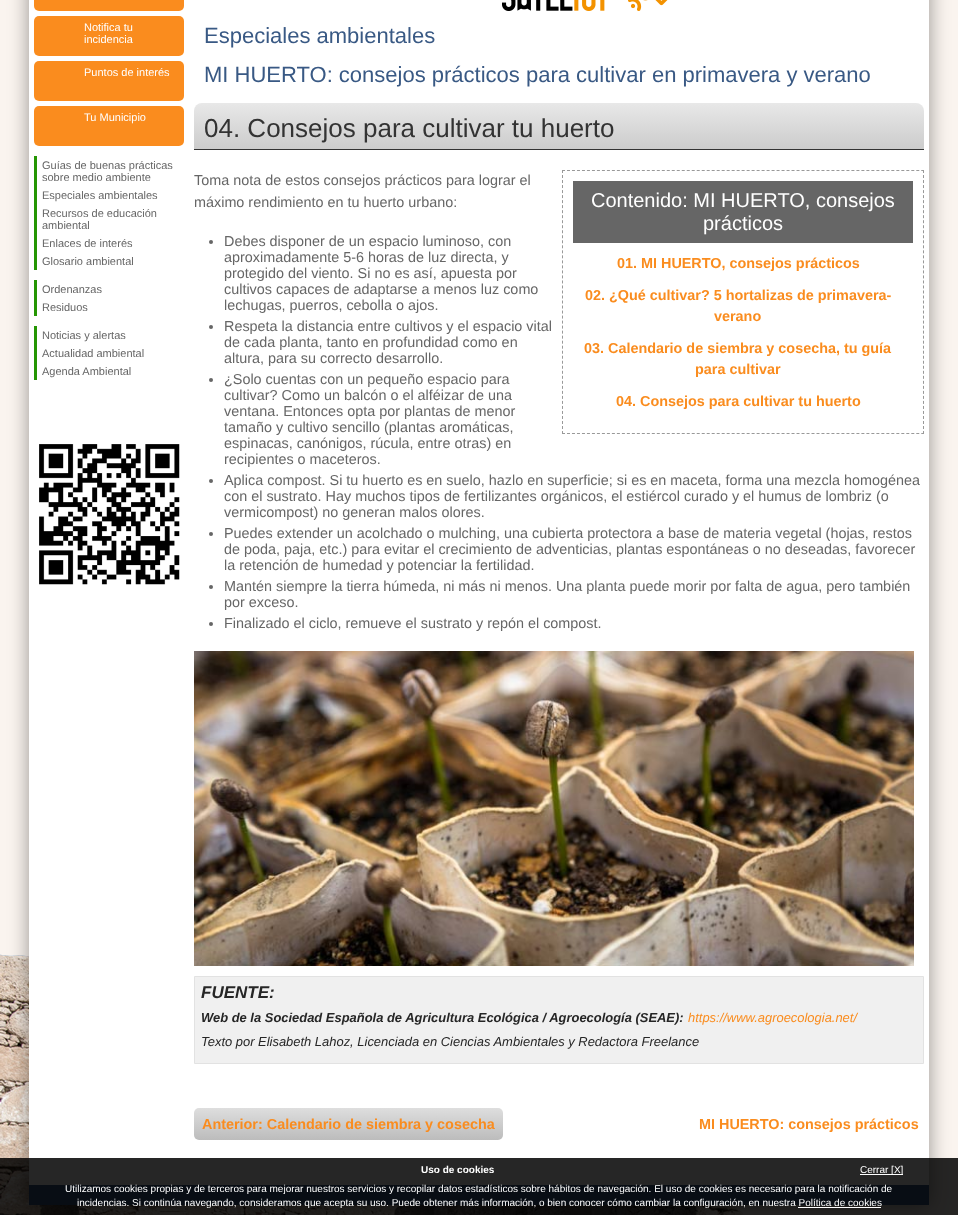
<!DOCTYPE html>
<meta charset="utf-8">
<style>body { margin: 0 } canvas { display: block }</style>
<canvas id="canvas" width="958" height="1215"></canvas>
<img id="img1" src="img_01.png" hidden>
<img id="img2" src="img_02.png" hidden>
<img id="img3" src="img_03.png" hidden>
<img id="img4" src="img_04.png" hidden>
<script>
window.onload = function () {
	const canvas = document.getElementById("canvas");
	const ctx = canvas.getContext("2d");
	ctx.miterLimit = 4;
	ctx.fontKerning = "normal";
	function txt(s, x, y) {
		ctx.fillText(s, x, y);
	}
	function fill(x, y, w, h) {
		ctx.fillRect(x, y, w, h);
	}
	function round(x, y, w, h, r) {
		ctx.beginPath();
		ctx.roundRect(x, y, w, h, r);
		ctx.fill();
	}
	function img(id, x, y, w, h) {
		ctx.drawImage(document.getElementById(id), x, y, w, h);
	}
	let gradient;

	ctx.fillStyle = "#FAF4EF";
	fill(0, 0, 958, 1215);
	img("img1", 0, 954, 744, 261);
	ctx.fillStyle = "rgba(0, 0, 0, 0.4)";
	ctx.filter = "blur(10px)";
	ctx.beginPath();
	ctx.rect(29, -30, 900, 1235);
	ctx.fill();
	ctx.filter = "none";
	ctx.fillStyle = "#FFFFFF";
	fill(29, 0, 900, 1185);
	img("img2", 502, 0, 166, 11);
	ctx.fillStyle = "#FA8C1E";
	round(34, -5, 150, 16, 5);
	round(34, 16, 150, 40, 5);
	round(34, 61, 150, 40, 5);
	round(34, 106, 150, 40, 5);
	ctx.fillStyle = "#259603";
	fill(34, 156, 3, 114);
	fill(34, 280, 3, 36);
	fill(34, 326, 3, 54);
	img("img3", 39, 444, 141, 141);
	gradient = ctx.createLinearGradient(559, 103, 559, 149);
	gradient.addColorStop(0, "#E8E8E8");
	gradient.addColorStop(1, "#CCCCCC");
	ctx.fillStyle = gradient;
	ctx.beginPath();
	ctx.roundRect(194, 103, 730, 46, [8, 8, 0, 0]);
	ctx.fill();
	ctx.fillStyle = "#333333";
	fill(194, 149, 730, 1);
	ctx.beginPath();
	ctx.moveTo(562, 170.5);
	ctx.lineTo(924, 170.5);
	ctx.strokeStyle = "#999999";
	ctx.setLineDash([3, 1.99]);
	ctx.stroke();
	ctx.beginPath();
	ctx.moveTo(923.5, 170);
	ctx.lineTo(923.5, 434);
	ctx.setLineDash([3, 2.02]);
	ctx.stroke();
	ctx.beginPath();
	ctx.moveTo(562, 433.5);
	ctx.lineTo(924, 433.5);
	ctx.setLineDash([3, 1.99]);
	ctx.stroke();
	ctx.beginPath();
	ctx.moveTo(562.5, 170);
	ctx.lineTo(562.5, 434);
	ctx.setLineDash([3, 2.02]);
	ctx.stroke();
	ctx.fillStyle = "#666666";
	fill(573, 181, 340, 62);
	ctx.beginPath();
	ctx.arc(211, 242, 2, 0, Math.PI * 2);
	ctx.fill();
	ctx.beginPath();
	ctx.arc(211, 327, 2, 0, Math.PI * 2);
	ctx.fill();
	ctx.beginPath();
	ctx.arc(211, 380, 2, 0, Math.PI * 2);
	ctx.fill();
	ctx.beginPath();
	ctx.arc(211, 481, 2, 0, Math.PI * 2);
	ctx.fill();
	ctx.beginPath();
	ctx.arc(211, 534, 2, 0, Math.PI * 2);
	ctx.fill();
	ctx.beginPath();
	ctx.arc(211, 587, 2, 0, Math.PI * 2);
	ctx.fill();
	ctx.beginPath();
	ctx.arc(211, 624, 2, 0, Math.PI * 2);
	ctx.fill();
	img("img4", 194, 651, 720, 315);
	ctx.fillStyle = "#F0F0F0";
	ctx.beginPath();
	ctx.rect(194.5, 976.5, 729, 87);
	ctx.fill();
	ctx.strokeStyle = "#E2E2E2";
	ctx.setLineDash([]);
	ctx.stroke();
	gradient = ctx.createLinearGradient(349, 1108, 349, 1140);
	gradient.addColorStop(0, "#DEDEDE");
	gradient.addColorStop(1, "#BCBCBC");
	ctx.fillStyle = gradient;
	round(194, 1108, 309, 32, 5);
	ctx.fillStyle = "#395984";
	fill(29, 1185, 900, 20);
	ctx.fillStyle = "rgba(0, 0, 0, 0.85)";
	fill(0, 1158, 958, 57);
	ctx.fillStyle = "#FFFFFF";
	fill(860, 1174, 43, 1);
	fill(798, 1207, 83, 1);
	ctx.font = "11px Liberation Sans";
	txt("Notifica tu", 84, 31);
	txt("incidencia", 84, 43);
	txt("Puntos de interés", 84, 76);
	txt("Tu Municipio", 84, 121);
	ctx.fillStyle = "#666666";
	txt("Guías de buenas prácticas", 42, 169);
	txt("sobre medio ambiente", 42, 181);
	txt("Especiales ambientales", 42, 199);
	txt("Recursos de educación", 42, 217);
	txt("ambiental", 42, 229);
	txt("Enlaces de interés", 42, 247);
	txt("Glosario ambiental", 42, 265);
	txt("Ordenanzas", 42, 293);
	txt("Residuos", 42, 311);
	txt("Noticias y alertas", 42, 339);
	txt("Actualidad ambiental", 42, 357);
	txt("Agenda Ambiental", 42, 375);
	ctx.font = "22px Liberation Sans";
	ctx.fillStyle = "#395984";
	txt("Especiales ambientales", 204, 43);
	txt("MI HUERTO: consejos prácticos para cultivar en primavera y verano", 204, 82);
	ctx.font = "26px Liberation Sans";
	ctx.fillStyle = "#333333";
	txt("04. Consejos para cultivar tu huerto", 204, 137);
	ctx.font = "14.4px Liberation Sans";
	ctx.fillStyle = "#666666";
	txt("Toma nota de estos consejos prácticos para lograr el", 194, 185);
	txt("máximo rendimiento en tu huerto urbano:", 194, 207);
	ctx.font = "20px Liberation Sans";
	ctx.fillStyle = "#FFFFFF";
	txt("Contenido: MI HUERTO, consejos", 591, 207);
	txt("prácticos", 703, 230);
	ctx.font = "bold 14.4px Liberation Sans";
	ctx.fillStyle = "#FA8C1E";
	txt("01. MI HUERTO, consejos prácticos", 617, 268);
	txt("02. ¿Qué cultivar? 5 hortalizas de primavera-", 585, 300);
	txt("verano", 714, 321);
	txt("03. Calendario de siembra y cosecha, tu guía", 584, 353);
	txt("para cultivar", 695, 374);
	txt("04. Consejos para cultivar tu huerto", 616, 406);
	ctx.font = "14.4px Liberation Sans";
	ctx.fillStyle = "#666666";
	txt("Debes disponer de un espacio luminoso, con", 224, 246);
	txt("aproximadamente 5-6 horas de luz directa, y", 224, 262);
	txt("protegido del viento. Si no es así, apuesta por", 224, 278);
	txt("cultivos capaces de adaptarse a menos luz como", 224, 294);
	txt("lechugas, puerros, cebolla o ajos.", 224, 310);
	txt("Respeta la distancia entre cultivos y el espacio vital", 224, 331);
	txt("de cada planta, tanto en profundidad como en", 224, 347);
	txt("altura, para su correcto desarrollo.", 224, 363);
	txt("¿Solo cuentas con un pequeño espacio para", 224, 384);
	txt("cultivar? Como un balcón o el alféizar de una", 224, 400);
	txt("ventana. Entonces opta por plantas de menor", 224, 416);
	txt("tamaño y cultivo sencillo (plantas aromáticas,", 224, 432);
	txt("espinacas, canónigos, rúcula, entre otras) en", 224, 448);
	txt("recipientes o maceteros.", 224, 464);
	txt("Aplica compost. Si tu huerto es en suelo, hazlo en superficie; si es en maceta, forma una mezcla homogénea", 224, 485);
	txt("con el sustrato. Hay muchos tipos de fertilizantes orgánicos, el estiércol curado y el humus de lombriz (o", 224, 501);
	txt("vermicompost) no generan malos olores.", 224, 517);
	txt("Puedes extender un acolchado o mulching, una cubierta protectora a base de materia vegetal (hojas, restos", 224, 538);
	txt("de poda, paja, etc.) para evitar el crecimiento de adventicias, plantas espontáneas o no deseadas, favorecer", 224, 554);
	txt("la retención de humedad y potenciar la fertilidad.", 224, 570);
	txt("Mantén siempre la tierra húmeda, ni más ni menos. Una planta puede morir por falta de agua, pero también", 224, 591);
	txt("por exceso.", 224, 607);
	txt("Finalizado el ciclo, remueve el sustrato y repón el compost.", 224, 628);
	ctx.font = "italic bold 17px Liberation Sans";
	ctx.fillStyle = "#262626";
	txt("FUENTE:", 201, 998);
	ctx.font = "italic bold 12.95px Liberation Sans";
	txt("Web de la Sociedad Española de Agricultura Ecológica / Agroecología (SEAE):", 201, 1022);
	ctx.font = "italic 12.95px Liberation Sans";
	ctx.fillStyle = "#FA8C1E";
	txt("https://www.agroecologia.net/", 688, 1022);
	ctx.fillStyle = "#262626";
	txt("Texto por Elisabeth Lahoz, Licenciada en Ciencias Ambientales y Redactora Freelance", 201, 1046);
	ctx.font = "bold 14.4px Liberation Sans";
	ctx.fillStyle = "#FA8C1E";
	txt("Anterior: Calendario de siembra y cosecha", 202, 1129);
	txt("MI HUERTO: consejos prácticos", 699, 1129);
	ctx.font = "bold 10px Liberation Sans";
	ctx.fillStyle = "#FFFFFF";
	txt("Uso de cookies", 421, 1173);
	ctx.font = "10px Liberation Sans";
	txt("Cerrar [X]", 860, 1173);
	txt("Utilizamos cookies propias y de terceros para mejorar nuestros servicios y recopilar datos estadísticos sobre hábitos de navegación. El uso de cookies es necesario para la notificación de", 65, 1192);
	txt("incidencias. Si continúa navegando, consideramos que acepta su uso. Puede obtener más información, o bien conocer cómo cambiar la configuración, en nuestra Política de cookies", 77, 1206);
};
</script>
